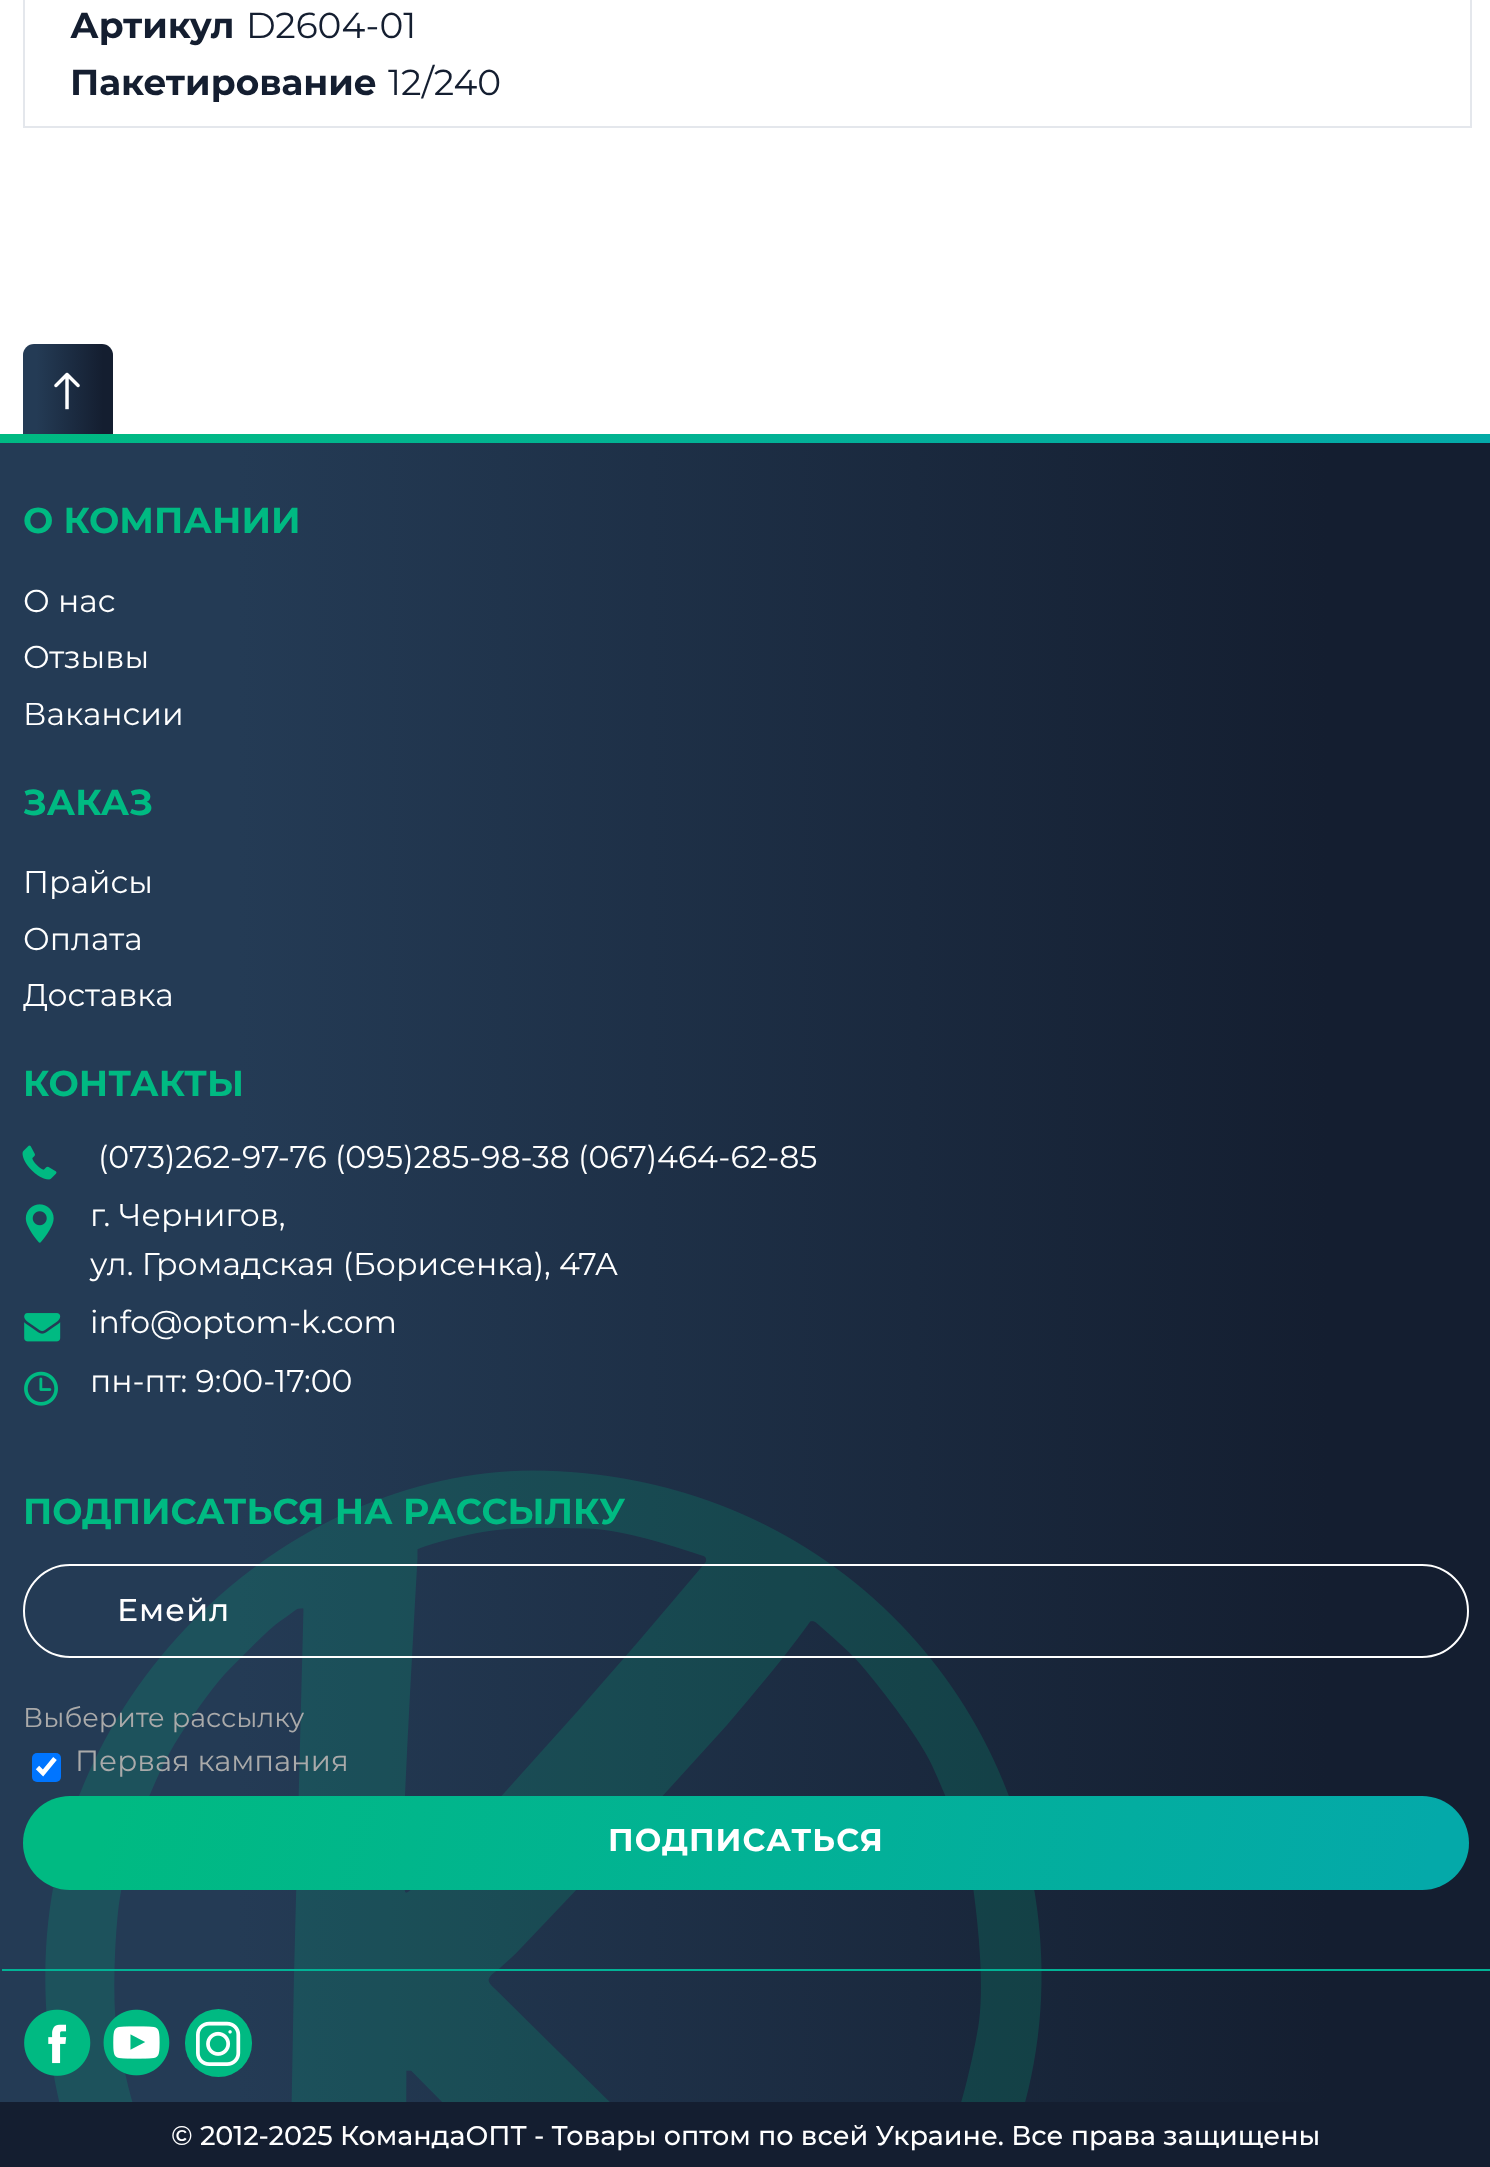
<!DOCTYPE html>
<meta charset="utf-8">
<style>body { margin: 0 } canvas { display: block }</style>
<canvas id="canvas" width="1490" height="2167"></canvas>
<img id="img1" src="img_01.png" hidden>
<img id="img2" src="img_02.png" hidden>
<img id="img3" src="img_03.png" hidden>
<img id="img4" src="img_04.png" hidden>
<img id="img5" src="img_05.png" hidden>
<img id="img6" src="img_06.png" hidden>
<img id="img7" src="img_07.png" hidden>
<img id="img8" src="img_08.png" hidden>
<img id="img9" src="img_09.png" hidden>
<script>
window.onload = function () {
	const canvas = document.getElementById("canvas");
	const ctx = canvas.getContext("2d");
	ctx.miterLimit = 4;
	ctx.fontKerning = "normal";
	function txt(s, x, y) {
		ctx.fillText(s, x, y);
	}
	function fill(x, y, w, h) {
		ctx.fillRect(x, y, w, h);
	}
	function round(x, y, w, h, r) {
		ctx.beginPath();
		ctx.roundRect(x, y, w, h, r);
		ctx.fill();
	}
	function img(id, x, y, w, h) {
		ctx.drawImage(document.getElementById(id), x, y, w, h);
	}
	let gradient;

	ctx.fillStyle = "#FFFFFF";
	fill(0, 0, 1490, 2167);
	ctx.strokeStyle = "#E4E7EC";
	ctx.lineWidth = 2;
	ctx.strokeRect(24, -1, 1447, 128);
	gradient = ctx.createLinearGradient(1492, 1302, 0, 1302);
	gradient.addColorStop(0.11, "#141E30");
	gradient.addColorStop(0.84, "#243B55");
	ctx.fillStyle = gradient;
	fill(0, 443, 1490, 1659);
	gradient = ctx.createLinearGradient(744, 397, 748, 480);
	gradient.addColorStop(0.06, "#00BA82");
	gradient.addColorStop(0.97, "#04A9A9");
	ctx.fillStyle = gradient;
	fill(0, 434, 1490, 9);
	gradient = ctx.createLinearGradient(113, 389, 22, 389);
	gradient.addColorStop(0.11, "#141E30");
	gradient.addColorStop(0.84, "#243B55");
	ctx.fillStyle = gradient;
	ctx.beginPath();
	ctx.roundRect(23, 344, 90, 90, [11, 11, 0, 0]);
	ctx.fill();
	img("img1", 54, 372, 26, 38);
	img("img2", 22, 1145, 35, 35);
	img("img3", 25, 1204, 29, 39);
	img("img4", 24, 1313, 37, 29);
	img("img5", 24, 1371, 34, 35);
	img("img6", 45, 1470, 997, 632);
	ctx.beginPath();
	ctx.roundRect(24, 1565, 1444, 92, 46);
	ctx.strokeStyle = "#FFFFFF";
	ctx.stroke();
	ctx.fillStyle = "#0075FF";
	round(32, 1753, 29, 29, 5);
	ctx.beginPath();
	ctx.moveTo(37.5, 1767.5);
	ctx.lineTo(43, 1773);
	ctx.lineTo(55, 1758.5);
	ctx.lineWidth = 4.7;
	ctx.stroke();
	gradient = ctx.createLinearGradient(53, 1672, 1439, 2013);
	gradient.addColorStop(0.06, "#00BA82");
	gradient.addColorStop(0.97, "#04A9A9");
	ctx.fillStyle = gradient;
	round(23, 1796, 1446, 94, 47);
	gradient = ctx.createLinearGradient(747, 1960, 747, 1980);
	gradient.addColorStop(0.06, "#00BA82");
	gradient.addColorStop(0.97, "#04A9A9");
	ctx.fillStyle = gradient;
	fill(2, 1969, 1488, 2);
	ctx.fillStyle = "#FFFFFF";
	round(29, 2016, 57, 56, 28);
	img("img7", 24, 2009, 67, 67);
	round(110, 2016, 57, 56, 28);
	img("img8", 103, 2009, 67, 67);
	ctx.fillStyle = "#00BA82";
	round(185, 2009, 67, 68, 33.5);
	img("img9", 196, 2021, 45, 45);
	ctx.fillStyle = "#141E30";
	fill(0, 2102, 1490, 65);
	ctx.font = "bold 36px Montserrat";
	txt("Артикул", 70, 38);
	ctx.font = "36px Montserrat";
	txt("D2604-01", 246, 38);
	ctx.font = "bold 36px Montserrat";
	txt("Пакетирование", 70, 95);
	ctx.font = "36px Montserrat";
	txt("12/240", 388, 95);
	ctx.font = "bold 36px Montserrat";
	ctx.fillStyle = "#00BA82";
	txt("О КОМПАНИИ", 23, 533);
	ctx.font = "31.5px Montserrat";
	ctx.fillStyle = "#FFFFFF";
	txt("О нас", 23, 612);
	txt("Отзывы", 23, 668);
	txt("Вакансии", 23, 725);
	ctx.font = "bold 36px Montserrat";
	ctx.fillStyle = "#00BA82";
	txt("ЗАКАЗ", 23, 815);
	ctx.font = "31.5px Montserrat";
	ctx.fillStyle = "#FFFFFF";
	txt("Прайсы", 23, 893);
	txt("Оплата", 23, 950);
	txt("Доставка", 23, 1006);
	ctx.font = "bold 36px Montserrat";
	ctx.fillStyle = "#00BA82";
	txt("КОНТАКТЫ", 23, 1096);
	ctx.font = "31.5px Montserrat";
	ctx.fillStyle = "#FFFFFF";
	txt("(073)262-97-76 (095)285-98-38 (067)464-62-85", 98, 1168);
	txt("г. Чернигов,", 90, 1226);
	txt("ул. Громадская (Борисенка), 47А", 90, 1275);
	txt("info@optom-k.com", 90, 1333);
	txt("пн-пт: 9:00-17:00", 90, 1392);
	ctx.font = "bold 36px Montserrat";
	ctx.fillStyle = "#00BA82";
	txt("ПОДПИСАТЬСЯ НА РАССЫЛКУ", 23, 1524);
	ctx.letterSpacing = "1.1px";
	ctx.font = "500 31.5px Montserrat";
	ctx.fillStyle = "#FFFFFF";
	txt("Емейл", 117, 1621);
	ctx.letterSpacing = "0px";
	ctx.font = "27px Montserrat";
	ctx.fillStyle = "#AAAAAA";
	txt("Выберите рассылку", 23, 1727);
	ctx.font = "29.25px Montserrat";
	txt("Первая кампания", 75, 1771);
	ctx.letterSpacing = "1.1px";
	ctx.font = "bold 31.5px Montserrat";
	ctx.fillStyle = "#FFFFFF";
	txt("ПОДПИСАТЬСЯ", 608, 1851);
	ctx.letterSpacing = "0px";
	ctx.font = "500 27px Montserrat";
	txt("© 2012-2025 КомандаОПТ - Товары оптом по всей Украине. Все права защищены", 171, 2145);
};
</script>
